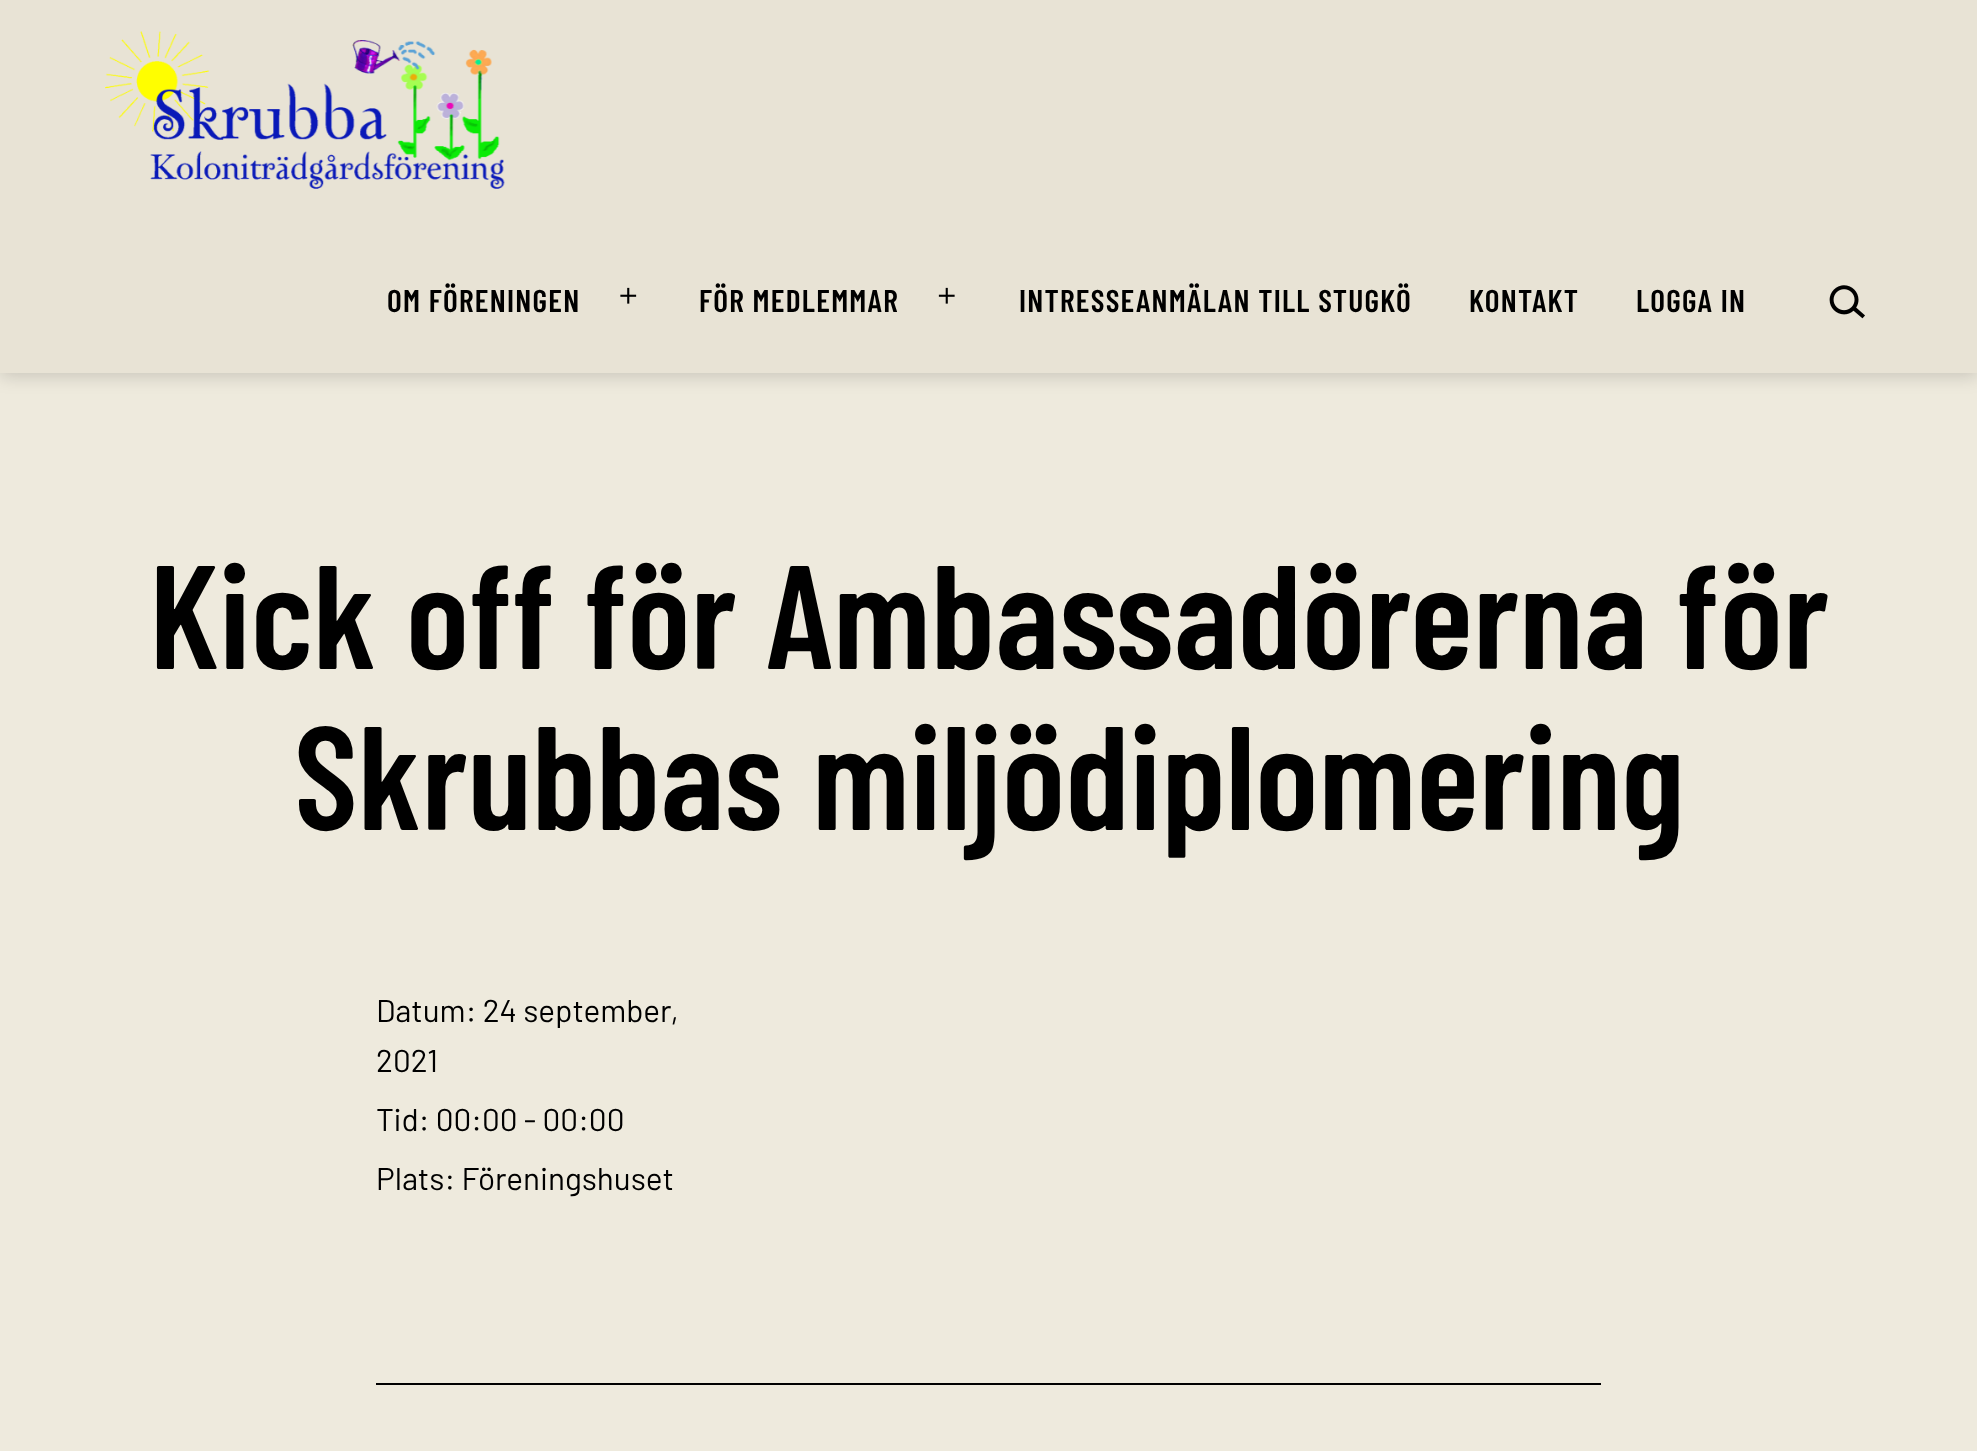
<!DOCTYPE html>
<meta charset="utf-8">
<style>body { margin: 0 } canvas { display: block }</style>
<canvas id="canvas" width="1977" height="1451"></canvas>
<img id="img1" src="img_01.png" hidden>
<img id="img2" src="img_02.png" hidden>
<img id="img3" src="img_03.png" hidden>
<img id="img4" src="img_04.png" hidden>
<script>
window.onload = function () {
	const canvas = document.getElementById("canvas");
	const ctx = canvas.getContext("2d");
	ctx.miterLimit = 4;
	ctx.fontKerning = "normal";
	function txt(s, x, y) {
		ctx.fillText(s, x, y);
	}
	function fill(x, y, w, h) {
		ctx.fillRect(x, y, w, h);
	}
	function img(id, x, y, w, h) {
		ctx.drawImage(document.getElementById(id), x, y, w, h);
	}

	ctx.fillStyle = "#EEEADD";
	fill(0, 0, 1977, 1451);
	ctx.fillStyle = "rgba(0, 0, 0, 0.16)";
	ctx.filter = "blur(9px)";
	ctx.beginPath();
	ctx.rect(0, 4, 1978, 372);
	ctx.fill();
	ctx.filter = "none";
	ctx.fillStyle = "#E8E3D5";
	fill(0, 0, 1977, 373);
	img("img1", 105, 31, 400, 158);
	img("img2", 620, 287, 17, 17);
	img("img3", 938, 287, 17, 17);
	img("img4", 1829, 285, 36, 34);
	ctx.fillStyle = "#000000";
	fill(376, 1383, 1225, 2);
	ctx.letterSpacing = "1.25px";
	ctx.font = "600 31.5px Barlow Condensed";
	txt("OM FÖRENINGEN", 387, 312);
	txt("FÖR MEDLEMMAR", 699, 312);
	txt("INTRESSEANMÄLAN TILL STUGKÖ", 1019, 312);
	txt("KONTAKT", 1469, 312);
	txt("LOGGA IN", 1636, 312);
	ctx.letterSpacing = "0px";
	ctx.font = "600 147px Barlow Condensed";
	txt("Kick off för Ambassadörerna för", 149, 669);
	txt("Skrubbas miljödiplomering", 294, 830);
	ctx.font = "31.5px Barlow";
	txt("Datum: 24 september,", 376, 1022);
	txt("2021", 376, 1072);
	txt("Tid: 00:00 - 00:00", 376, 1131);
	txt("Plats: Föreningshuset", 376, 1190);
};
</script>
